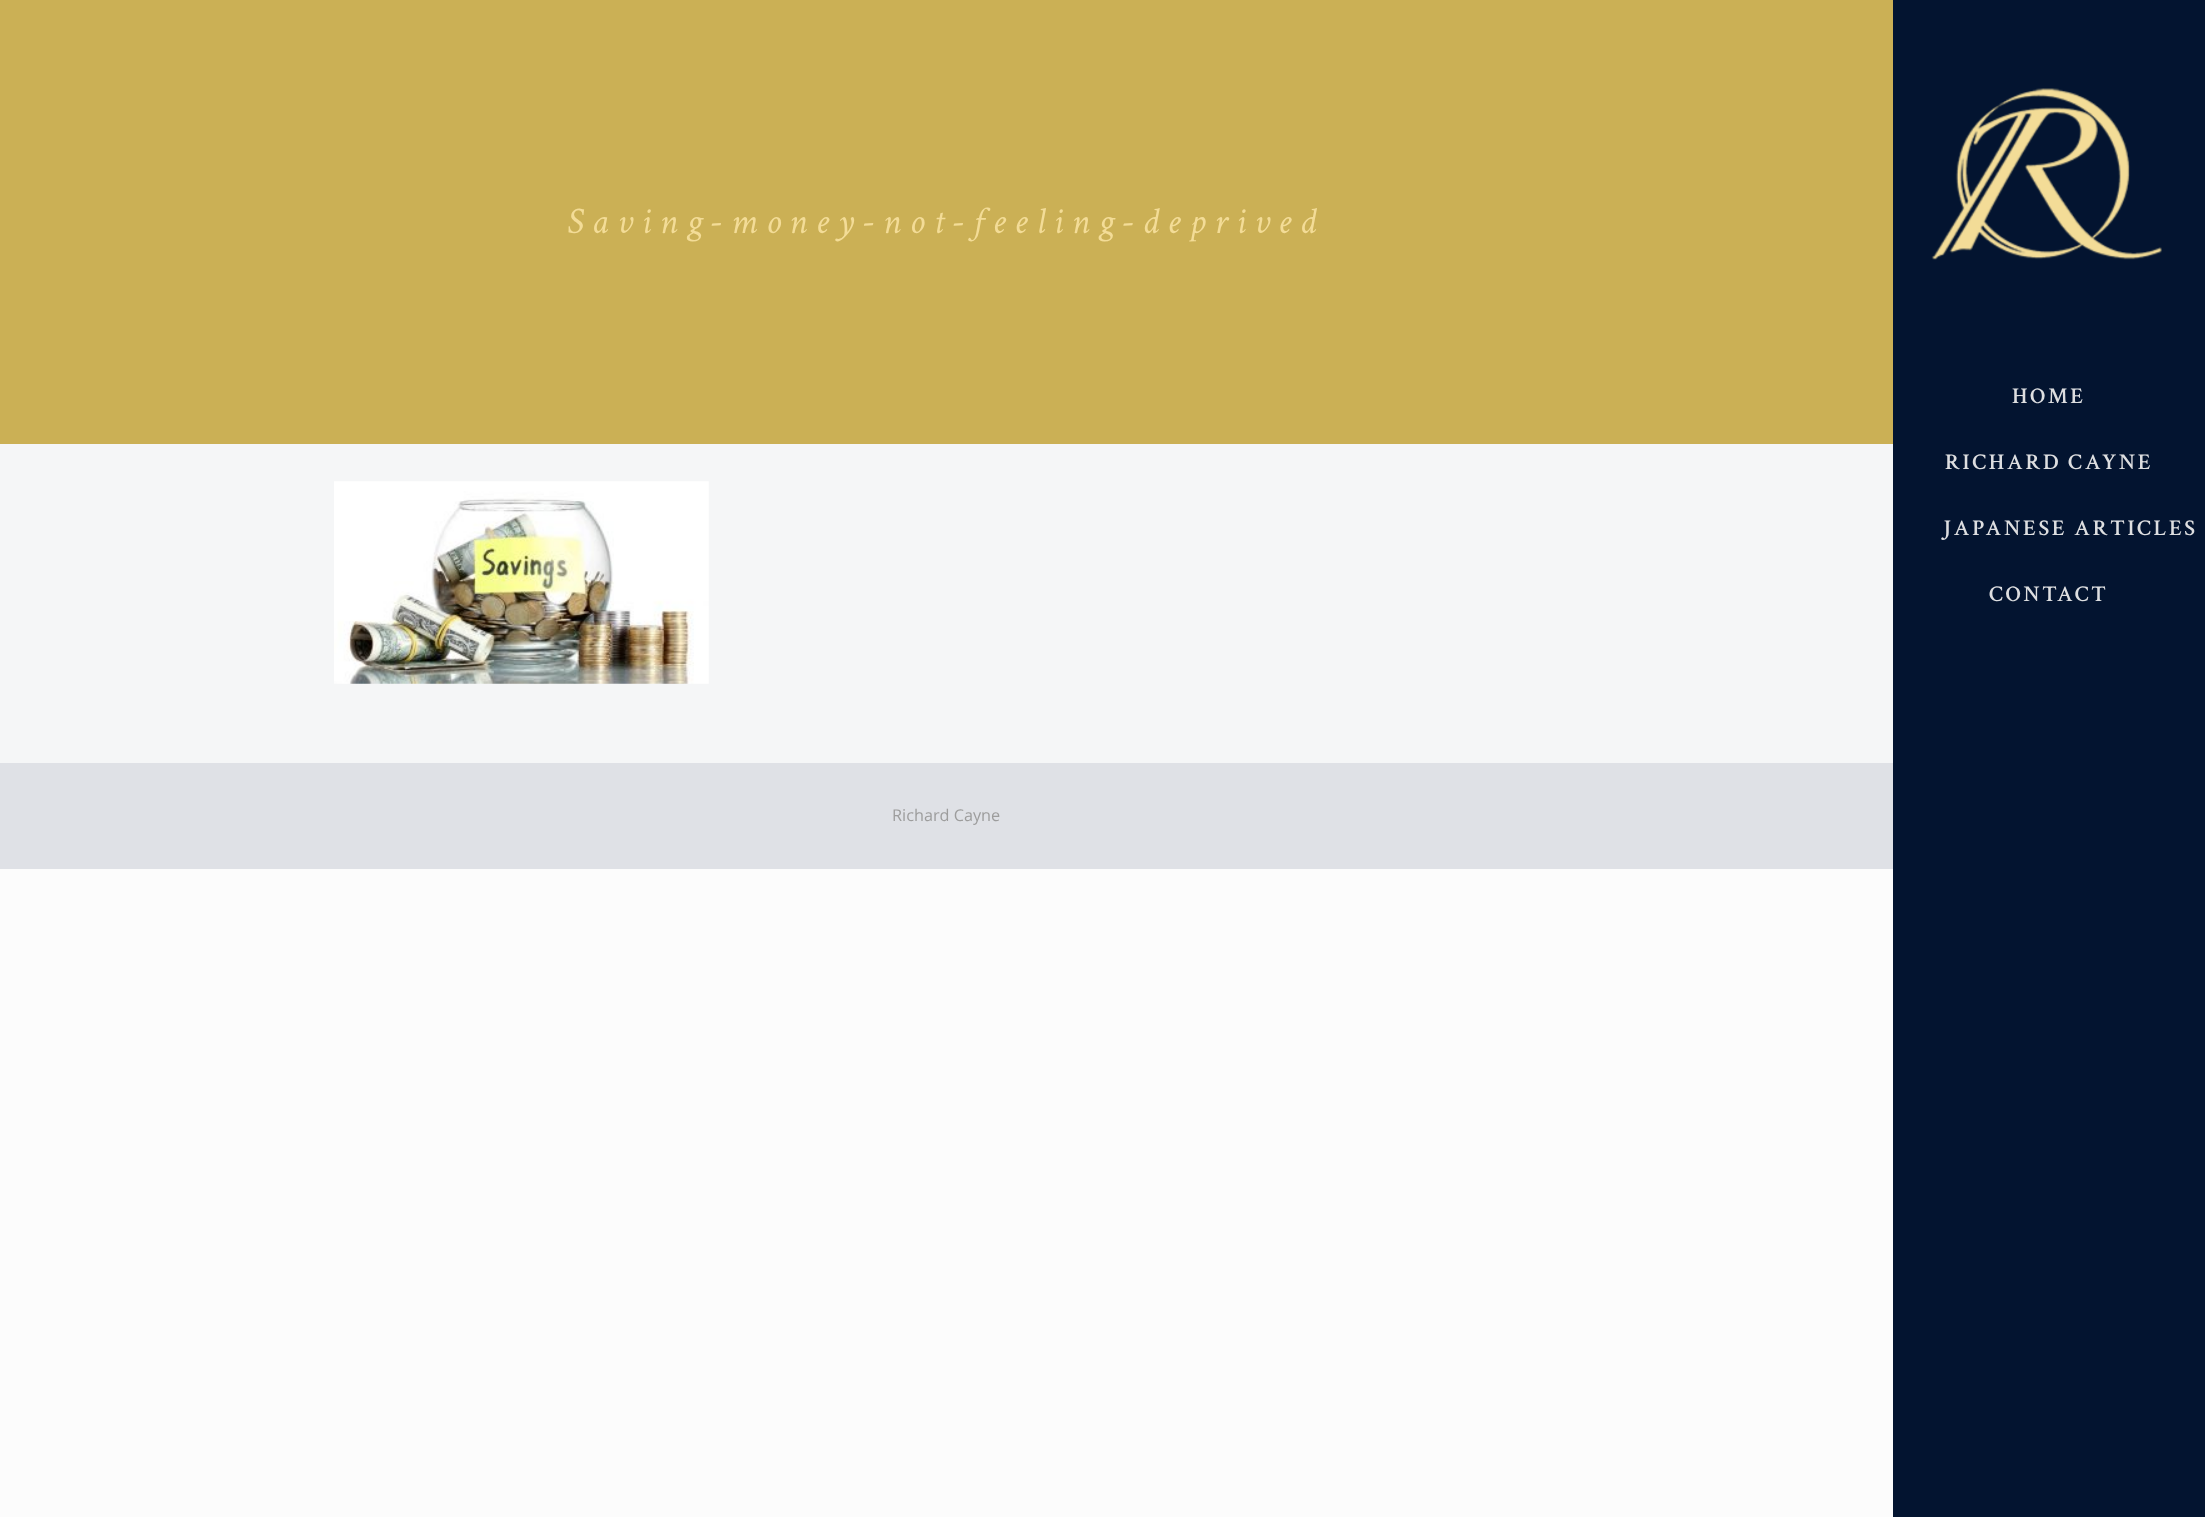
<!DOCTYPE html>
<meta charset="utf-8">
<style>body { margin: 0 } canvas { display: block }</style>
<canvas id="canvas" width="2205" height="1517"></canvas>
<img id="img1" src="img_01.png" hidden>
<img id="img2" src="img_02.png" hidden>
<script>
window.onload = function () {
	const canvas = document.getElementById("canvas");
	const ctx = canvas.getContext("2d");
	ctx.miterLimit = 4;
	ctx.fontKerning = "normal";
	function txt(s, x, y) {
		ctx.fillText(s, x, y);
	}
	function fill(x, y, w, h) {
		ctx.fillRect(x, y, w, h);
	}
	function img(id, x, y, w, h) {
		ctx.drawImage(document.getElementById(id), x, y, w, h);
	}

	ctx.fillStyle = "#FCFCFC";
	fill(0, 0, 2205, 1517);
	ctx.fillStyle = "#F5F6F7";
	fill(0, 444, 1893, 319);
	ctx.fillStyle = "#CBB055";
	fill(0, 0, 1893, 444);
	img("img1", 334, 481, 375, 203);
	ctx.fillStyle = "#DFE1E6";
	fill(0, 763, 1893, 106);
	ctx.fillStyle = "#031430";
	fill(1893, 0, 312, 1517);
	img("img2", 1931, 88, 231, 172);
	ctx.letterSpacing = "8.75px";
	ctx.font = "italic 37.5px Crimson Text";
	ctx.fillStyle = "#F3DC97";
	txt("Saving-money-not-feeling-deprived", 567, 233);
	ctx.letterSpacing = "0px";
	ctx.font = "16.25px Open Sans";
	ctx.fillStyle = "#9D9D9D";
	txt("Richard Cayne", 892, 821);
	ctx.letterSpacing = "2.5px";
	ctx.font = "600 22.5px Crimson Text";
	ctx.fillStyle = "#DDDEE0";
	txt("HOME", 2012, 403);
	txt("RICHARD CAYNE", 1945, 469);
	txt("JAPANESE ARTICLES", 1943, 535);
	txt("CONTACT", 1989, 601);
};
</script>
